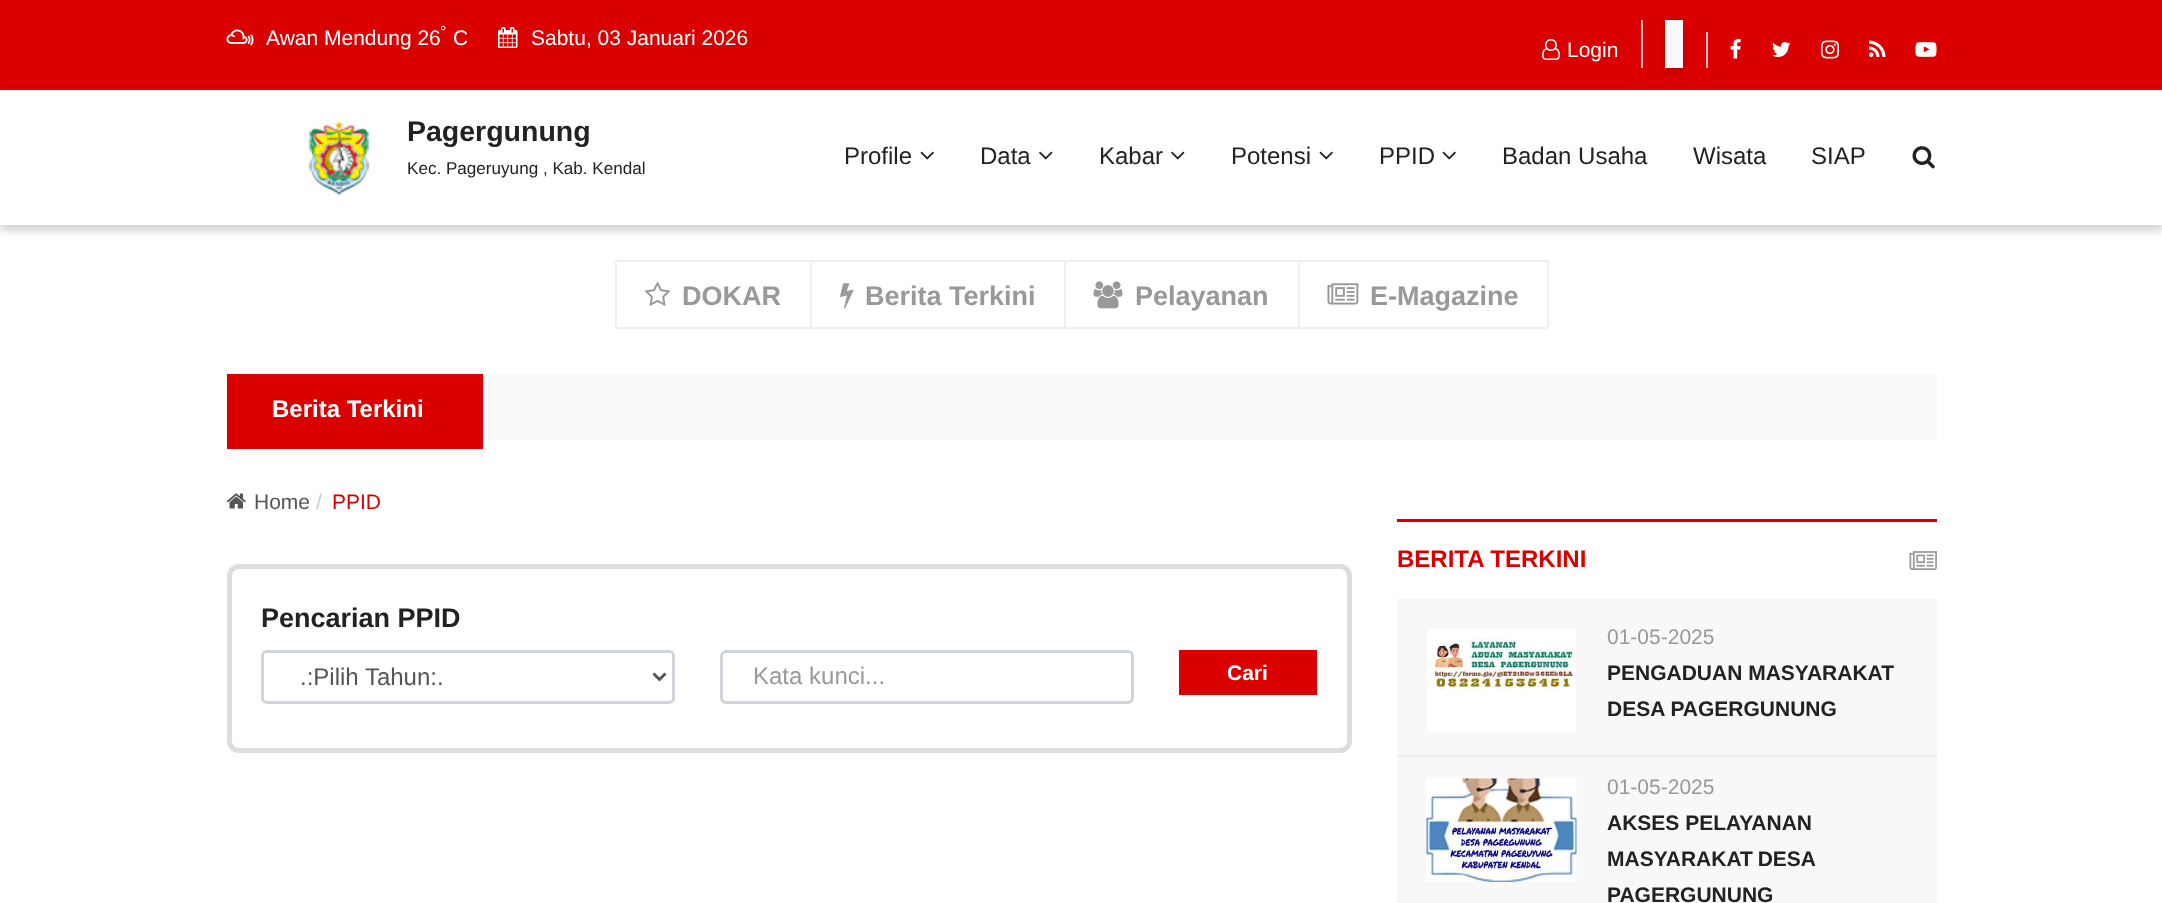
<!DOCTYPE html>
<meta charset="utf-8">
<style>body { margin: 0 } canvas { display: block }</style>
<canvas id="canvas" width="2162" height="903"></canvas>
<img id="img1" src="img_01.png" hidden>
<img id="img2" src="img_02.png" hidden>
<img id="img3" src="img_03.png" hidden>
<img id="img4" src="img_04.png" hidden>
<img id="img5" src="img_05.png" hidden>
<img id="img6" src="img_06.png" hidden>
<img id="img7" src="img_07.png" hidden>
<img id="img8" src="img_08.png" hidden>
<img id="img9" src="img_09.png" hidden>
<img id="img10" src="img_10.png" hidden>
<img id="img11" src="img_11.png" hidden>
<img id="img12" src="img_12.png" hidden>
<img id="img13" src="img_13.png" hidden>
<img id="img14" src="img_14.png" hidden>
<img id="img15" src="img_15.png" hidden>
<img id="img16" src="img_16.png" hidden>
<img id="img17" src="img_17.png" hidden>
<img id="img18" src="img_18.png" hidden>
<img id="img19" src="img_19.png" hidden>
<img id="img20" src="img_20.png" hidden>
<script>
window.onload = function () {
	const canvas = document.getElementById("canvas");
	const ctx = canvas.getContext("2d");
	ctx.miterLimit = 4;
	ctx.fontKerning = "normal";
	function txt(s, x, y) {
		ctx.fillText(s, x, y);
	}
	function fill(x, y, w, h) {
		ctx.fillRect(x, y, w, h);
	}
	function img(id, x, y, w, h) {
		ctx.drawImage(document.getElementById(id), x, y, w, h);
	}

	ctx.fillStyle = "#FFFFFF";
	fill(0, 0, 2162, 903);
	ctx.fillStyle = "#DA0000";
	fill(0, 0, 2162, 87);
	img("img1", 226, 29, 28, 17);
	img("img2", 498, 27, 20, 21);
	img("img3", 1542, 39, 18, 21);
	ctx.fillStyle = "#F6BFBF";
	fill(1641, 20, 2, 48);
	ctx.fillStyle = "rgba(0, 0, 0, 0.15)";
	ctx.filter = "blur(4px)";
	ctx.beginPath();
	ctx.rect(1665, 23, 18, 48);
	ctx.fill();
	ctx.filter = "none";
	ctx.fillStyle = "#F8F9FA";
	fill(1665, 20, 18, 48);
	ctx.fillStyle = "#F6BFBF";
	fill(1706, 32, 2, 36);
	img("img4", 1730, 39, 11, 20);
	img("img5", 1772, 42, 19, 15);
	img("img6", 1821, 40, 18, 19);
	img("img7", 1869, 40, 17, 17);
	img("img8", 1915, 42, 22, 15);
	ctx.save();
	ctx.beginPath();
	ctx.moveTo(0, 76);
	ctx.lineTo(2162, 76);
	ctx.lineTo(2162, 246);
	ctx.lineTo(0, 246);
	ctx.closePath();
	ctx.moveTo(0, 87);
	ctx.lineTo(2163, 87);
	ctx.lineTo(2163, 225);
	ctx.lineTo(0, 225);
	ctx.closePath();
	ctx.clip("evenodd");
	ctx.fillStyle = "rgba(0, 0, 0, 0.2)";
	ctx.filter = "blur(5px)";
	ctx.beginPath();
	ctx.rect(0, 92, 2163, 138);
	ctx.fill();
	ctx.filter = "none";
	ctx.restore();
	ctx.fillStyle = "#DA0000";
	fill(0, 87, 2162, 3);
	img("img9", 308, 120, 62, 75);
	img("img10", 920, 151, 14, 9);
	img("img11", 1039, 151, 14, 9);
	img("img11", 1171, 151, 14, 9);
	img("img10", 1319, 151, 14, 9);
	img("img10", 1442, 151, 14, 9);
	img("img12", 1912, 146, 23, 23);
	ctx.fillStyle = "#F0F0F0";
	fill(615, 327, 933, 2);
	fill(615, 260, 197, 2);
	fill(810, 260, 2, 67);
	fill(615, 260, 2, 67);
	img("img13", 645, 281, 25, 25);
	fill(810, 260, 255, 2);
	fill(1064, 260, 2, 67);
	img("img14", 840, 283, 14, 26);
	fill(1064, 260, 235, 2);
	fill(1298, 260, 2, 67);
	img("img15", 1093, 281, 30, 28);
	fill(1298, 260, 250, 2);
	fill(1547, 260, 2, 67);
	img("img16", 1327, 283, 32, 22);
	ctx.fillStyle = "#DA0000";
	fill(227, 374, 256, 75);
	ctx.fillStyle = "#FAFAFA";
	fill(483, 374, 1454, 66);
	img("img17", 226, 493, 20, 16);
	ctx.beginPath();
	ctx.roundRect(229.5, 566.5, 1120, 184, 9.5);
	ctx.strokeStyle = "#DDDDDD";
	ctx.lineWidth = 5;
	ctx.stroke();
	ctx.beginPath();
	ctx.roundRect(262.5, 651.5, 411, 51, 4.5);
	ctx.strokeStyle = "#CED4DA";
	ctx.lineWidth = 3;
	ctx.stroke();
	ctx.beginPath();
	ctx.moveTo(653.5, 673.5);
	ctx.lineTo(659.5, 679.5);
	ctx.lineTo(665.5, 673.5);
	ctx.strokeStyle = "#555555";
	ctx.stroke();
	ctx.beginPath();
	ctx.roundRect(721.5, 651.5, 411, 51, 4.5);
	ctx.strokeStyle = "#CED4DA";
	ctx.stroke();
	ctx.fillStyle = "#DA0000";
	fill(1179, 650, 138, 45);
	fill(1397, 519, 540, 3);
	img("img18", 1909, 551, 28, 19);
	ctx.fillStyle = "#F8F8F8";
	fill(1397, 599, 540, 304);
	img("img19", 1427, 629, 149, 103);
	ctx.fillStyle = "#EEEEEE";
	fill(1397, 755, 540, 2);
	img("img20", 1426, 778, 151, 104);
	ctx.font = "16px Liberation Sans";
	ctx.fillStyle = "#FFFFFF";
	txt("°", 440, 37);
	ctx.font = "21px Liberation Sans";
	txt("Awan Mendung 26", 266, 45);
	txt("C", 453, 45);
	txt("Sabtu, 03 Januari 2026", 531, 45);
	txt("Login", 1567, 57);
	ctx.font = "bold 28.5px Liberation Sans";
	ctx.fillStyle = "#222222";
	txt("Pagergunung", 407, 141);
	ctx.font = "17.1px Liberation Sans";
	txt("Kec. Pageruyung , Kab. Kendal", 407, 174);
	ctx.font = "24px Liberation Sans";
	txt("Profile", 844, 164);
	txt("Data", 980, 164);
	txt("Kabar", 1099, 164);
	txt("Potensi", 1231, 164);
	txt("PPID", 1379, 164);
	txt("Badan Usaha", 1502, 164);
	txt("Wisata", 1693, 164);
	txt("SIAP", 1811, 164);
	ctx.font = "bold 27px Liberation Sans";
	ctx.fillStyle = "#999999";
	txt("DOKAR", 682, 305);
	txt("Berita Terkini", 865, 305);
	txt("Pelayanan", 1135, 305);
	txt("E-Magazine", 1370, 305);
	ctx.font = "bold 24px Liberation Sans";
	ctx.fillStyle = "#FFFFFF";
	txt("Berita Terkini", 272, 417);
	ctx.font = "21px Liberation Sans";
	ctx.fillStyle = "#555555";
	txt("Home", 254, 509);
	ctx.fillStyle = "#CCCCCC";
	txt("/", 316, 509);
	ctx.fillStyle = "#DA0000";
	txt("PPID", 332, 509);
	ctx.font = "bold 27px Liberation Sans";
	ctx.fillStyle = "#222222";
	txt("Pencarian PPID", 261, 627);
	ctx.font = "24px Liberation Sans";
	ctx.fillStyle = "#555555";
	txt(".:Pilih Tahun:.", 300, 685);
	ctx.fillStyle = "#999999";
	txt("Kata kunci...", 753, 684);
	ctx.font = "bold 21px Liberation Sans";
	ctx.fillStyle = "#FFFFFF";
	txt("Cari", 1227, 680);
	ctx.font = "bold 24px Liberation Sans";
	ctx.fillStyle = "#DA0000";
	txt("BERITA TERKINI", 1397, 567);
	ctx.font = "21px Liberation Sans";
	ctx.fillStyle = "#999999";
	txt("01-05-2025", 1607, 644);
	ctx.font = "bold 21px Liberation Sans";
	ctx.fillStyle = "#222222";
	txt("PENGADUAN MASYARAKAT", 1607, 680);
	txt("DESA PAGERGUNUNG", 1607, 716);
	ctx.font = "21px Liberation Sans";
	ctx.fillStyle = "#999999";
	txt("01-05-2025", 1607, 794);
	ctx.font = "bold 21px Liberation Sans";
	ctx.fillStyle = "#222222";
	txt("AKSES PELAYANAN", 1607, 830);
	ctx.wordSpacing = "-1px";
	txt("MASYARAKAT DESA", 1607, 866);
	ctx.wordSpacing = "0px";
	txt("PAGERGUNUNG", 1607, 902);
};
</script>
